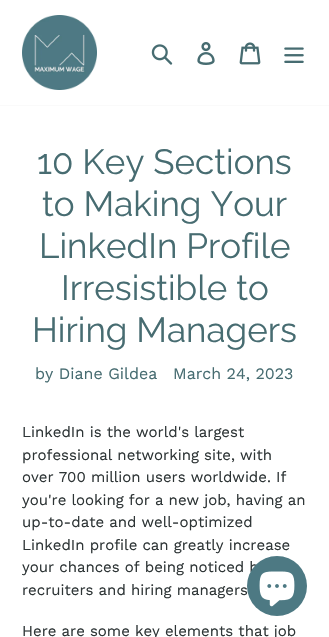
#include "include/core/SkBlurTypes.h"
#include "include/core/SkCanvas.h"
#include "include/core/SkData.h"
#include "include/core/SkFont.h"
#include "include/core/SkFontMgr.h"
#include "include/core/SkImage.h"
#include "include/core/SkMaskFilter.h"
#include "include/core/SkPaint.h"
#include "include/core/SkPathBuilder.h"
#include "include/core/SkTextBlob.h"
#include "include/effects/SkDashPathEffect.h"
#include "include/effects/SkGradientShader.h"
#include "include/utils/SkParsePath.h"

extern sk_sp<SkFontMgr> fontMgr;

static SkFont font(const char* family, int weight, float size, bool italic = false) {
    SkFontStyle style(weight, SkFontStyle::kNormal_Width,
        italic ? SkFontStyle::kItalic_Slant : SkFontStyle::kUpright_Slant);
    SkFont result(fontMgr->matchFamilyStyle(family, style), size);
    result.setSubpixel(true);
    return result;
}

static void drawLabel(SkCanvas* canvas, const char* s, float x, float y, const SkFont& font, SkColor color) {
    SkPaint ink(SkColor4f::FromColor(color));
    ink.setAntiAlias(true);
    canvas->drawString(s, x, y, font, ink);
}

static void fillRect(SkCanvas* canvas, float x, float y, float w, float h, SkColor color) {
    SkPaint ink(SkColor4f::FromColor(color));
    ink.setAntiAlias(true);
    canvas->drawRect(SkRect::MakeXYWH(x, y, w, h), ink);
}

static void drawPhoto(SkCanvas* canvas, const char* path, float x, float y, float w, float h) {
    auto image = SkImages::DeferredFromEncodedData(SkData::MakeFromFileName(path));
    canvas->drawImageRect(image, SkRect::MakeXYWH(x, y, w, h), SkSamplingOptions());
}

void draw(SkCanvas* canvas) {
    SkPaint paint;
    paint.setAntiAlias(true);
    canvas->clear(0xFFFFFFFF);
    fillRect(canvas, 0, 105, 329, 1, 0xFFFAFAFA);
    drawPhoto(canvas, "assets/img1.png", 22, 15, 75, 75);
    drawPhoto(canvas, "assets/img2.png", 151, 44, 22, 21);
    drawPhoto(canvas, "assets/img3.png", 197, 42, 18, 23);
    drawPhoto(canvas, "assets/img4.png", 239, 42, 22, 23);
    drawPhoto(canvas, "assets/img5.png", 284, 47, 20, 16);
    SkFont font1 = font("Raleway", 400, 35);
    drawLabel(canvas, "10 Key Sections", 37, 174, font1, 0xFF476C71);
    drawLabel(canvas, "to Making Your", 42, 216, font1, 0xFF476C71);
    drawLabel(canvas, "LinkedIn Profile", 39, 258, font1, 0xFF476C71);
    drawLabel(canvas, "Irresistible to", 61, 300, font1, 0xFF476C71);
    drawLabel(canvas, "Hiring Managers", 32, 342, font1, 0xFF476C71);
    SkFont font2 = font("Work Sans", 400, 16);
    drawLabel(canvas, "by Diane Gildea", 35, 379, font2, 0xFF476C71);
    drawLabel(canvas, "March 24, 2023", 173, 379, font2, 0xFF476C71);
    SkFont font3 = font("Work Sans", 400, 15);
    drawLabel(canvas, "LinkedIn is the world's largest", 22, 437, font3, 0xFF2E3536);
    drawLabel(canvas, "professional networking site, with", 22, 460, font3, 0xFF2E3536);
    drawLabel(canvas, "over 700 million users worldwide. If", 22, 482, font3, 0xFF2E3536);
    drawLabel(canvas, "you're looking for a new job, having an", 22, 505, font3, 0xFF2E3536);
    drawLabel(canvas, "up-to-date and well-optimized", 22, 527, font3, 0xFF2E3536);
    drawLabel(canvas, "LinkedIn profile can greatly increase", 22, 550, font3, 0xFF2E3536);
    drawLabel(canvas, "your chances of being noticed b", 22, 572, font3, 0xFF2E3536);
    drawLabel(canvas, "recruiters and hiring managers", 22, 595, font3, 0xFF2E3536);
    drawLabel(canvas, "Here are some key elements that job", 22, 636, font3, 0xFF2E3536);
    paint.setColor(0xFF4D7983);
    canvas->drawCircle(277, 586, 30, paint);
    drawPhoto(canvas, "assets/img6.png", 259, 571, 36, 36);
}
